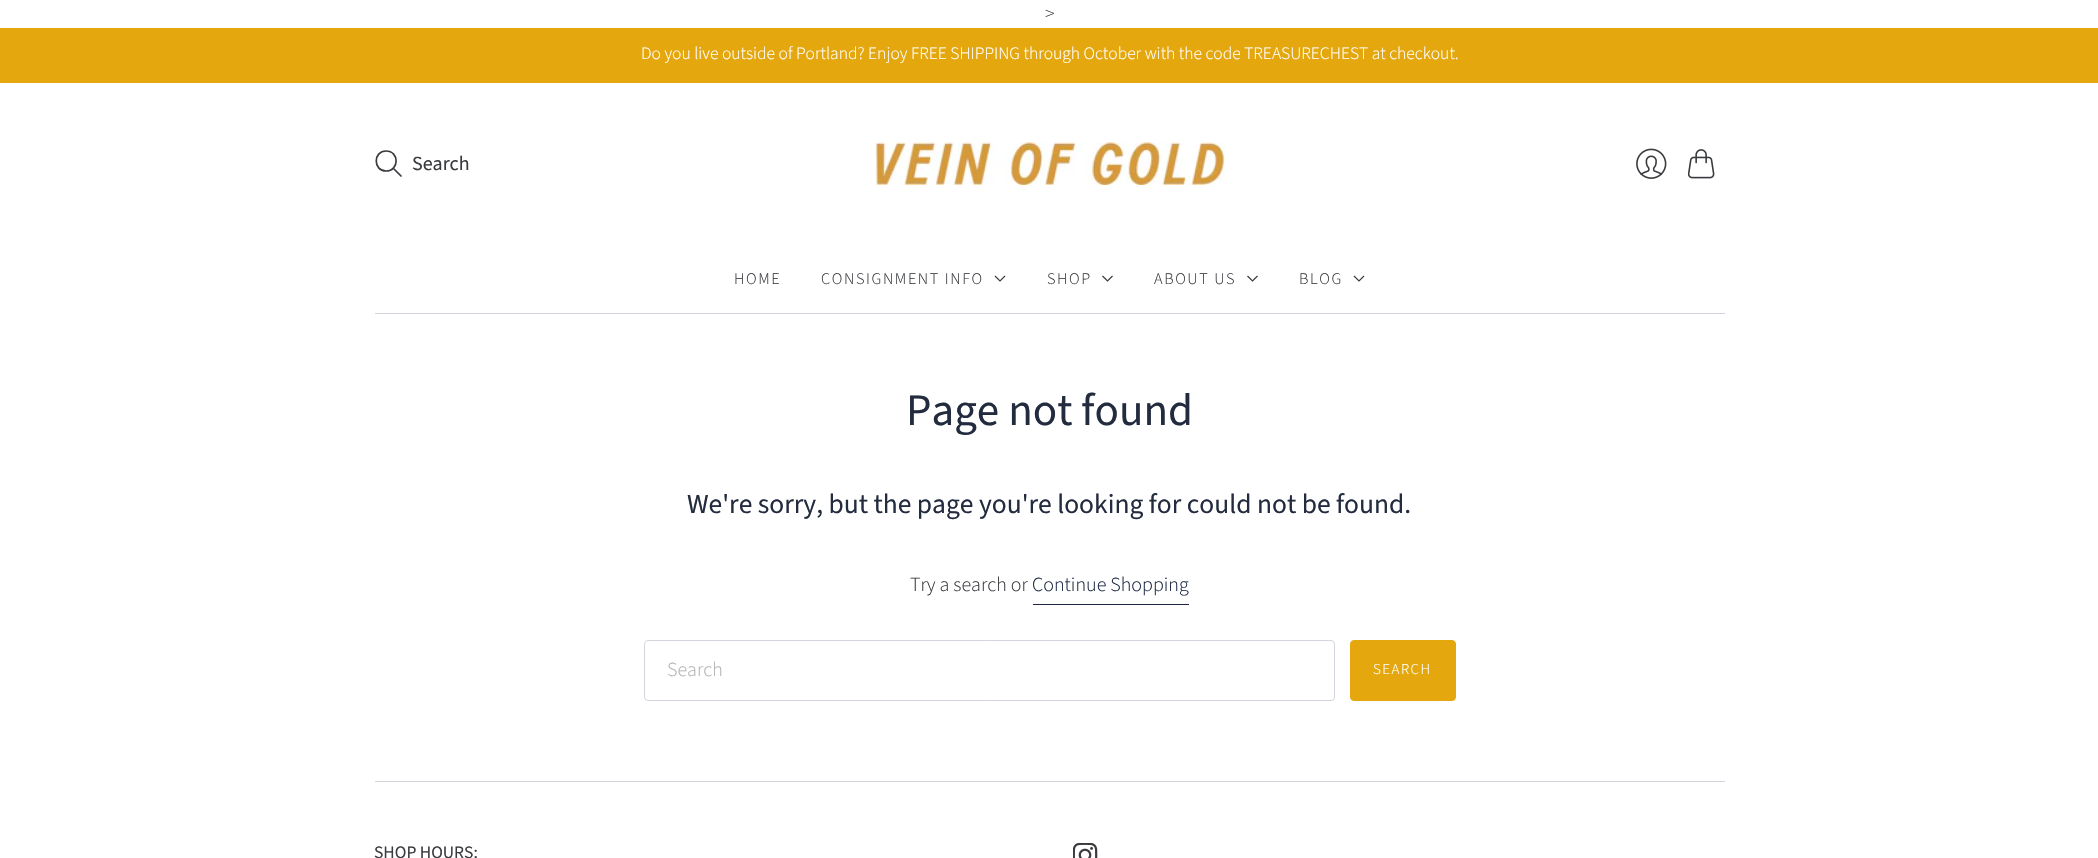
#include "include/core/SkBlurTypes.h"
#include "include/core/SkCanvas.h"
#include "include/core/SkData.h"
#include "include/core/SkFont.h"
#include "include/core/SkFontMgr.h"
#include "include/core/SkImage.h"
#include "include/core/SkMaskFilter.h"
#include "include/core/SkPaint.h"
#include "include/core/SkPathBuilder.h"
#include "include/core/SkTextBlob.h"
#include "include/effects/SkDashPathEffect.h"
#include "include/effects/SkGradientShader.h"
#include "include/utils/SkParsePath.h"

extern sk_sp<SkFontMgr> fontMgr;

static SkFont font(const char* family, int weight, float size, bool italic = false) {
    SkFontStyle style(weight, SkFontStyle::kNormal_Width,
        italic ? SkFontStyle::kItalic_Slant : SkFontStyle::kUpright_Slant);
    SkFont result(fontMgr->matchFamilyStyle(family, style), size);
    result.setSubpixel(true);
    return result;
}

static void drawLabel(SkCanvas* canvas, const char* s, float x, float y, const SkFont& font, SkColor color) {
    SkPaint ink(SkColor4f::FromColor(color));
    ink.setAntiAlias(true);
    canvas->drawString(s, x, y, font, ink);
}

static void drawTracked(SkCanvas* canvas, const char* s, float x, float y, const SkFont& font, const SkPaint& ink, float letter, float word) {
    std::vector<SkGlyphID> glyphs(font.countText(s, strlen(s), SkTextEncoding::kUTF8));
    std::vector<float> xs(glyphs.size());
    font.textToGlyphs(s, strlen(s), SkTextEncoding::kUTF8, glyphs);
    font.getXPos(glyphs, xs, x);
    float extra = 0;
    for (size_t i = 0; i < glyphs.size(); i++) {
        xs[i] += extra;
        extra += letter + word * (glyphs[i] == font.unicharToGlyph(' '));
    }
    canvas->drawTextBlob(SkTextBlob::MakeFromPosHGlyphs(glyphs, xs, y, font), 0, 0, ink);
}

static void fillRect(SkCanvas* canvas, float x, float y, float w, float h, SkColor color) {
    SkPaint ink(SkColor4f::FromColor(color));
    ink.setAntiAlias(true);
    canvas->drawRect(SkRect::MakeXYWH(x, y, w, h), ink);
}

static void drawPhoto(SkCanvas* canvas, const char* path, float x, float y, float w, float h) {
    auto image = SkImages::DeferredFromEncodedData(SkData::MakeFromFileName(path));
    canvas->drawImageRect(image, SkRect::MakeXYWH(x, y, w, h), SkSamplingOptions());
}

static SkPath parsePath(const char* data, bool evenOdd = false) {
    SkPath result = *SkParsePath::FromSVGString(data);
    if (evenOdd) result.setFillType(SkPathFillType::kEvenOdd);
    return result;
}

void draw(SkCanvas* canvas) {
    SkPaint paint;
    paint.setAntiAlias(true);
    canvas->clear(0xFFFFFFFF);
    SkFont font1 = font("Source Sans Pro", 300, 20);
    drawLabel(canvas, ">", 1045, 20, font1, 0xFF393B3F);
    fillRect(canvas, 0, 28, 2098, 55, 0xFFE4A80E);
    SkFont font2 = font("Source Sans Pro", 300, 17.5f);
    drawLabel(canvas, "Do you live outside of Portland? Enjoy FREE SHIPPING through October with the code TREASURECHEST at checkout.", 641, 59, font2, 0xFFFFFFFF);
    paint.setStroke(true);
    paint.setStrokeWidth(1.7f);
    paint.setStrokeCap(SkPaint::kRound_Cap);
    paint.setStrokeJoin(SkPaint::kRound_Join);
    paint.setColor(0xFF393B3F);
    canvas->drawPath(parsePath("M386 171C399.5 171 399.5 151 386 151C373 151 373 171 386 171ZM401 176L393.5 168.5"), paint);
    SkFont font3 = font("Source Sans Pro", 400, 20);
    drawLabel(canvas, "Search", 412, 170, font3, 0xFF393B3F);
    drawPhoto(canvas, "assets/img1.png", 1636, 148, 31, 31);
    drawPhoto(canvas, "assets/img2.png", 1688, 149, 27, 30);
    fillRect(canvas, 375, 313, 1350, 1, 0xFFD2D6DC);
    drawPhoto(canvas, "assets/img3.png", 875, 142, 350, 43);
    SkFont font4 = font("Source Sans Pro", 300, 16.25f);
    paint.setStroke(false);
    drawTracked(canvas, "HOME", 734, 284, font4, paint, 1.6f, 0);
    drawTracked(canvas, "CONSIGNMENT INFO", 821, 284, font4, paint, 1.6f, 0);
    paint.setStroke(true);
    paint.setStrokeWidth(1.2f);
    paint.setStrokeCap(SkPaint::kButt_Cap);
    paint.setStrokeJoin(SkPaint::kMiter_Join);
    canvas->drawPath(parsePath("M995 276L1000 281L1005 276"), paint);
    paint.setStroke(false);
    drawTracked(canvas, "SHOP", 1047, 284, font4, paint, 1.6f, 0);
    paint.setStroke(true);
    canvas->drawPath(parsePath("M1102.5 276L1107.5 281L1112.5 276"), paint);
    paint.setStroke(false);
    drawTracked(canvas, "ABOUT US", 1154, 284, font4, paint, 1.6f, 0);
    paint.setStroke(true);
    canvas->drawPath(parsePath("M1247.5 276L1252.5 281L1257.5 276"), paint);
    paint.setStroke(false);
    drawTracked(canvas, "BLOG", 1299, 284, font4, paint, 1.6f, 0);
    paint.setStroke(true);
    canvas->drawPath(parsePath("M1354 276L1359 281L1364 276"), paint);
    SkFont font5 = font("Source Sans Pro", 400, 45);
    drawLabel(canvas, "Page not found", 906, 425, font5, 0xFF232C3F);
    SkFont font6 = font("Source Sans Pro", 400, 27.5f);
    drawLabel(canvas, "We're sorry, but the page you're looking for could not be found.", 687, 513, font6, 0xFF232C3F);
    drawLabel(canvas, "Try a search or", 910, 591, font1, 0xFF393B3F);
    drawLabel(canvas, "Continue Shopping", 1032, 591, font1, 0xFF1A2642);
    fillRect(canvas, 1033, 604, 156, 1, 0xFF1A2642);
    paint.setStrokeWidth(1);
    paint.setColor(0xFFD2D6DC);
    canvas->drawRoundRect(SkRect::MakeXYWH(644.5f, 640.5f, 690, 60), 3.5f, 3.5f, paint);
    drawLabel(canvas, "Search", 667, 676, font1, 0xFFB0B1B2);
    paint.setStroke(false);
    paint.setColor(0xFFE4A80E);
    canvas->drawRoundRect(SkRect::MakeXYWH(1350.5f, 640.5f, 105, 60), 3.5f, 3.5f, paint);
    paint.setStroke(true);
    canvas->drawRoundRect(SkRect::MakeXYWH(1350.5f, 640.5f, 105, 60), 3.5f, 3.5f, paint);
    SkFont font7 = font("Source Sans Pro", 300, 15);
    paint.setStroke(false);
    paint.setColor(0xFFFFFFFF);
    drawTracked(canvas, "SEARCH", 1373, 674, font7, paint, 1.5f, 0);
    fillRect(canvas, 375, 781, 1350, 1, 0xFFD2D6DC);
    SkFont font8 = font("Source Sans Pro", 400, 17.5f);
    drawLabel(canvas, "SHOP HOURS:", 374, 858, font8, 0xFF393B3F);
    drawPhoto(canvas, "assets/img4.png", 1073, 843, 25, 15);
}
